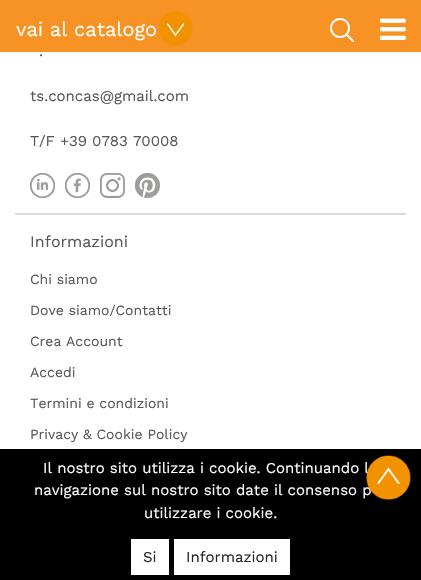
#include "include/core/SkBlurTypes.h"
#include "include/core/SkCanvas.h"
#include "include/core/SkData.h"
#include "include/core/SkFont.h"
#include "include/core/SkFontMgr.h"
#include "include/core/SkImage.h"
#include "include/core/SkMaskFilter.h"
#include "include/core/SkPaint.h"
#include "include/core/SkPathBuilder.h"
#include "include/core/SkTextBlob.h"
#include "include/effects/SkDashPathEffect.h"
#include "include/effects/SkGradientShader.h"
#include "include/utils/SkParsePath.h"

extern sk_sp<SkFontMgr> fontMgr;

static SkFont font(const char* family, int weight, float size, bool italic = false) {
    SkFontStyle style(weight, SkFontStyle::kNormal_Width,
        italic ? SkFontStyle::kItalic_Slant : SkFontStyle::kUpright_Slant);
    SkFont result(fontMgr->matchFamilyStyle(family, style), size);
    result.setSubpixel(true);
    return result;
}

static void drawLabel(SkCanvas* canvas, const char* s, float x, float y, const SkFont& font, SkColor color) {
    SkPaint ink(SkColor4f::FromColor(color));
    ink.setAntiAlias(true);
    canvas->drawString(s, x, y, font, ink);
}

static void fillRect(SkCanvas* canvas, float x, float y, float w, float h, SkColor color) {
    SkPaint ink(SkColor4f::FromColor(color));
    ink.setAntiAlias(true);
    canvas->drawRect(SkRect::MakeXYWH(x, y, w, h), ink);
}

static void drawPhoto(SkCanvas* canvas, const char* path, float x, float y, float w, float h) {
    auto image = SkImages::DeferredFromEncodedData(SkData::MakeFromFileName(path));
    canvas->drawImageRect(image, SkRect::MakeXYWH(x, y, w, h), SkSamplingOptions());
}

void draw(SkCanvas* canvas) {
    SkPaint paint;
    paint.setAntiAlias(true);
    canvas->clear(0xFFFFFFFF);
    fillRect(canvas, 0, 0, 421, 52, 0xFFF69324);
    SkFont font1 = font("Work Sans", 400, 20);
    drawLabel(canvas, "vai al catalogo", 16, 36, font1, 0xFFFFFFFF);
    drawPhoto(canvas, "assets/img1.png", 158, 11, 35, 35);
    drawPhoto(canvas, "assets/img2.png", 330, 18, 24, 24);
    drawPhoto(canvas, "assets/img3.png", 380, 18, 26, 22);
    SkFont font2 = font("Work Sans", 400, 15);
    drawLabel(canvas, ".", 39, 56, font2, 0xFF575756);
    drawLabel(canvas, "ts.concas@gmail.com", 30, 101, font2, 0xFF575756);
    drawLabel(canvas, "T/F +39 0783 70008", 30, 146, font2, 0xFF575756);
    drawPhoto(canvas, "assets/img4.png", 30, 173, 25, 25);
    drawPhoto(canvas, "assets/img5.png", 65, 173, 25, 25);
    drawPhoto(canvas, "assets/img6.png", 100, 173, 25, 25);
    drawPhoto(canvas, "assets/img7.png", 135, 173, 25, 25);
    fillRect(canvas, 15, 213, 391, 2, 0xFFDADADA);
    SkFont font3 = font("Work Sans", 400, 16);
    drawLabel(canvas, "Informazioni", 30, 247, font3, 0xFF575756);
    SkFont font4 = font("Work Sans", 400, 14);
    drawLabel(canvas, "Chi siamo", 30, 284, font4, 0xFF575756);
    drawLabel(canvas, "Dove siamo/Contatti", 30, 315, font4, 0xFF575756);
    drawLabel(canvas, "Crea Account", 30, 346, font4, 0xFF575756);
    drawLabel(canvas, "Accedi", 30, 377, font4, 0xFF575756);
    drawLabel(canvas, "Termini e condizioni", 30, 408, font4, 0xFF575756);
    drawLabel(canvas, "Privacy & Cookie Policy", 30, 439, font4, 0xFF575756);
    fillRect(canvas, 0, 449, 421, 131, 0xFF000000);
    drawLabel(canvas, "Il nostro sito utilizza i cookie. Continuando l", 43, 473, font2, 0xFFFFFFFF);
    drawLabel(canvas, "navigazione sul nostro sito date il consenso p", 34, 495, font2, 0xFFFFFFFF);
    drawPhoto(canvas, "assets/img8.png", 366, 455, 45, 45);
    drawLabel(canvas, "utilizzare i cookie.", 144, 518, font2, 0xFFFFFFFF);
    fillRect(canvas, 131, 539, 38, 36, 0xFFFFFFFF);
    drawLabel(canvas, "Si", 143, 562, font2, 0xFF212529);
    fillRect(canvas, 174, 539, 116, 36, 0xFFFFFFFF);
    drawLabel(canvas, "Informazioni", 186, 562, font2, 0xFF212529);
}
